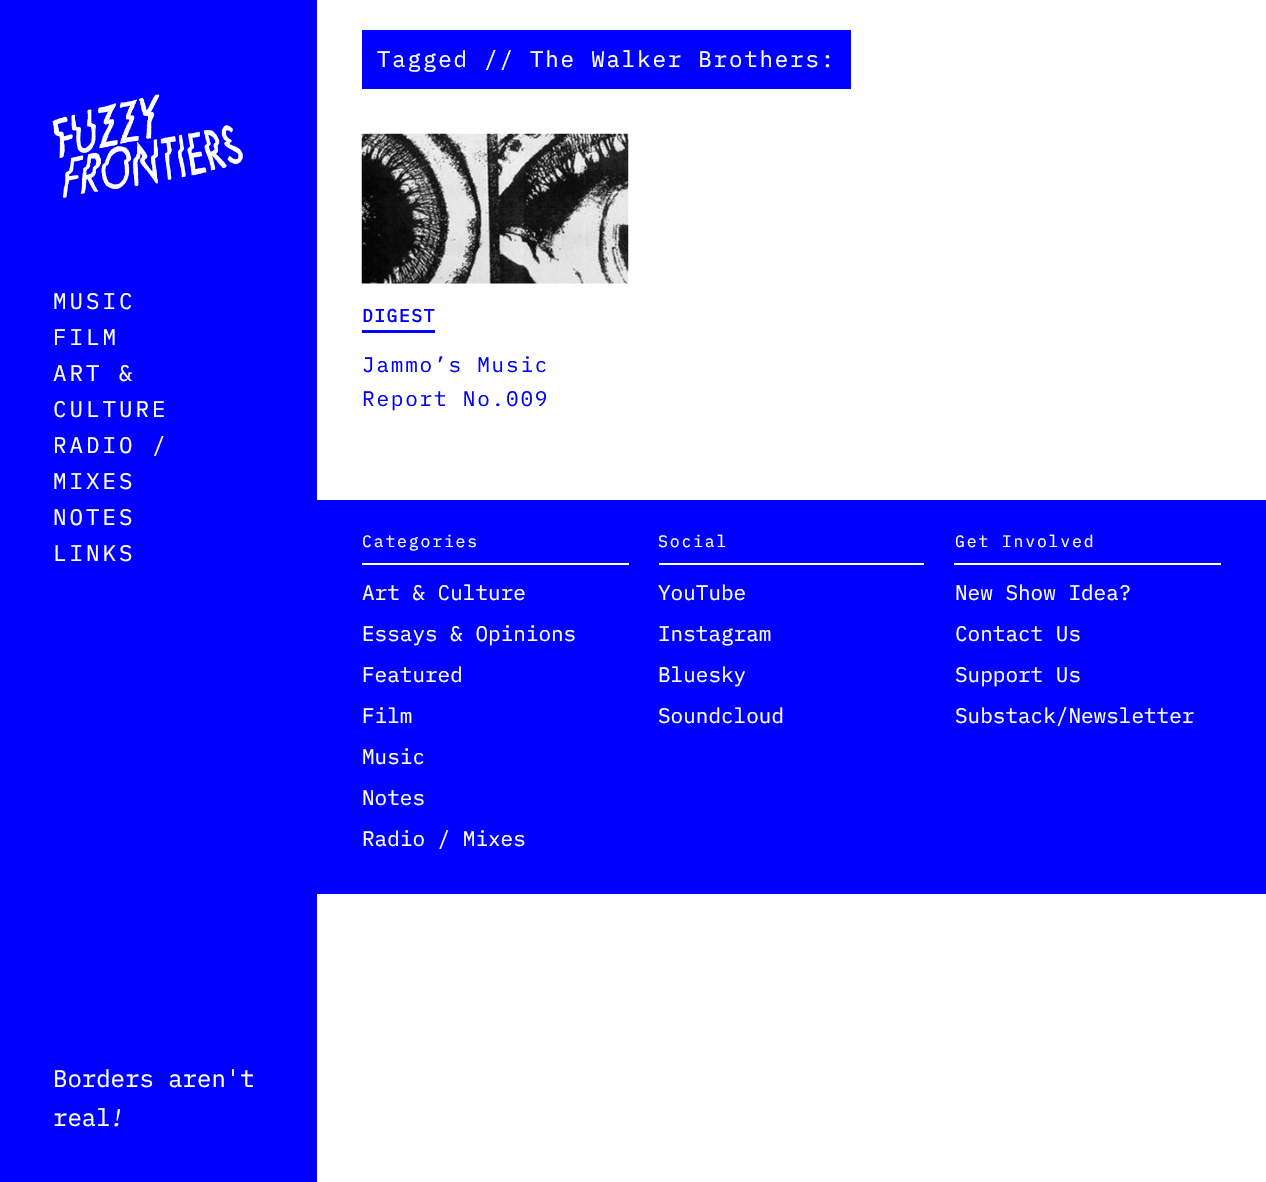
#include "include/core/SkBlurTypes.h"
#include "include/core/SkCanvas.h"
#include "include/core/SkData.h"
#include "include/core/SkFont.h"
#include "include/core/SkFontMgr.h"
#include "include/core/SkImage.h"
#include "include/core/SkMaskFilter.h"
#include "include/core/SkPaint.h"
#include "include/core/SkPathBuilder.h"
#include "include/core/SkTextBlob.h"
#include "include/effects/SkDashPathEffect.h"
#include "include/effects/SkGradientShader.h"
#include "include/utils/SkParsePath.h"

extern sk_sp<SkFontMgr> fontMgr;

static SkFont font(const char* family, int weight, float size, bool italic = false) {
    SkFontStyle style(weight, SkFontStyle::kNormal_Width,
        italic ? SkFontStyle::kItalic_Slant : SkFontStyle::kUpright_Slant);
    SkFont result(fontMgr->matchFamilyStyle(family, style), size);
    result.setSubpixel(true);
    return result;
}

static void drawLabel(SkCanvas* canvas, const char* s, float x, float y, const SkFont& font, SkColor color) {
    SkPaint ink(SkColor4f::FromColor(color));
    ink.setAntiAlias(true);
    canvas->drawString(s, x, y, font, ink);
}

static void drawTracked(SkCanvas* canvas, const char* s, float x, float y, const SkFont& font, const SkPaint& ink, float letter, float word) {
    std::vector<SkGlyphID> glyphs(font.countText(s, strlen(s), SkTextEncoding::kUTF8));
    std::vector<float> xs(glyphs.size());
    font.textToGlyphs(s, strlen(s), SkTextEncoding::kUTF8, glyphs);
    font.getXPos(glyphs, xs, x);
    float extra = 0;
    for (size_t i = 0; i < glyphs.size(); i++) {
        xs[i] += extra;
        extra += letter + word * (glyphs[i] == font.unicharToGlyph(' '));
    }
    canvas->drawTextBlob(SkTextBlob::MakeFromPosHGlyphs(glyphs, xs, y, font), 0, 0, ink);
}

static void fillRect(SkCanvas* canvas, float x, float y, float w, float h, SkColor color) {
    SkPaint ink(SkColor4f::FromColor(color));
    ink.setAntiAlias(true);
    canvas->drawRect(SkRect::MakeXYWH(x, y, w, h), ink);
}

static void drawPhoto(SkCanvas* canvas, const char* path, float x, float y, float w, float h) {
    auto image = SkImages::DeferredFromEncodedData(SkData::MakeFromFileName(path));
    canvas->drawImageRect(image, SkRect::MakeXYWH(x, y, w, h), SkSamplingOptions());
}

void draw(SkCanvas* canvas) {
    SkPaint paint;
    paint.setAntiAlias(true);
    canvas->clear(0xFFFFFFFF);
    fillRect(canvas, 0, 0, 317, 1182, 0xFF0000FF);
    drawPhoto(canvas, "assets/img1.png", 52, 94, 191, 104);
    SkFont font1 = font("IBM Plex Mono", 400, 22.5f);
    paint.setColor(0xFFFFFFFF);
    drawTracked(canvas, "MUSIC", 53, 309, font1, paint, 3, 0);
    drawTracked(canvas, "FILM", 53, 345, font1, paint, 3, 0);
    drawTracked(canvas, "ART &", 53, 381, font1, paint, 3, 0);
    drawTracked(canvas, "CULTURE", 53, 417, font1, paint, 3, 0);
    drawTracked(canvas, "RADIO /", 53, 453, font1, paint, 3, 0);
    drawTracked(canvas, "MIXES", 53, 489, font1, paint, 3, 0);
    drawTracked(canvas, "NOTES", 53, 525, font1, paint, 3, 0);
    drawTracked(canvas, "LINKS", 53, 561, font1, paint, 3, 0);
    SkFont font2 = font("IBM Plex Mono", 400, 24);
    drawLabel(canvas, "Borders aren't", 53, 1087, font2, 0xFFFFFFFF);
    drawLabel(canvas, "real", 53, 1126, font2, 0xFFFFFFFF);
    SkFont font3 = font("IBM Plex Mono", 400, 24, true);
    drawLabel(canvas, "!", 110, 1126, font3, 0xFFFFFFFF);
    fillRect(canvas, 362, 30, 489, 59, 0xFF0000FF);
    drawTracked(canvas, "Tagged // The Walker Brothers:", 377, 67, font1, paint, 1.8f, 0);
    drawPhoto(canvas, "assets/img2.png", 361, 133, 268, 151);
    fillRect(canvas, 362, 330, 73, 3, 0xFF0000FF);
    SkFont font4 = font("IBM Plex Mono", 700, 18);
    paint.setColor(0xFF0000FF);
    drawTracked(canvas, "DIGEST", 362, 322, font4, paint, 1.5f, 0);
    SkFont font5 = font("IBM Plex Mono", 400, 21);
    drawTracked(canvas, "Jammo’s Music", 362, 372, font5, paint, 1.8f, 0);
    drawTracked(canvas, "Report No.009", 362, 406, font5, paint, 1.8f, 0);
    fillRect(canvas, 317, 500, 949, 394, 0xFF0000FF);
    fillRect(canvas, 362, 563, 267, 2, 0xFFFFFFFF);
    SkFont font6 = font("IBM Plex Mono", 400, 16.5f);
    paint.setColor(0xFFFFFFFF);
    drawTracked(canvas, "Categories", 362, 547, font6, paint, 1.8f, 0);
    drawLabel(canvas, "Art & Culture", 362, 600, font5, 0xFFFFFFFF);
    drawLabel(canvas, "Essays & Opinions", 362, 641, font5, 0xFFFFFFFF);
    drawLabel(canvas, "Featured", 362, 682, font5, 0xFFFFFFFF);
    drawLabel(canvas, "Film", 362, 723, font5, 0xFFFFFFFF);
    drawLabel(canvas, "Music", 362, 764, font5, 0xFFFFFFFF);
    drawLabel(canvas, "Notes", 362, 805, font5, 0xFFFFFFFF);
    drawLabel(canvas, "Radio / Mixes", 362, 846, font5, 0xFFFFFFFF);
    fillRect(canvas, 659, 563, 265, 2, 0xFFFFFFFF);
    drawTracked(canvas, "Social", 658, 547, font6, paint, 1.8f, 0);
    drawLabel(canvas, "YouTube", 658, 600, font5, 0xFFFFFFFF);
    drawLabel(canvas, "Instagram", 658, 641, font5, 0xFFFFFFFF);
    drawLabel(canvas, "Bluesky", 658, 682, font5, 0xFFFFFFFF);
    drawLabel(canvas, "Soundcloud", 658, 723, font5, 0xFFFFFFFF);
    fillRect(canvas, 954, 563, 267, 2, 0xFFFFFFFF);
    drawTracked(canvas, "Get Involved", 955, 547, font6, paint, 1.8f, 0);
    drawLabel(canvas, "New Show Idea?", 955, 600, font5, 0xFFFFFFFF);
    drawLabel(canvas, "Contact Us", 955, 641, font5, 0xFFFFFFFF);
    drawLabel(canvas, "Support Us", 955, 682, font5, 0xFFFFFFFF);
    drawLabel(canvas, "Substack/Newsletter", 955, 723, font5, 0xFFFFFFFF);
}
